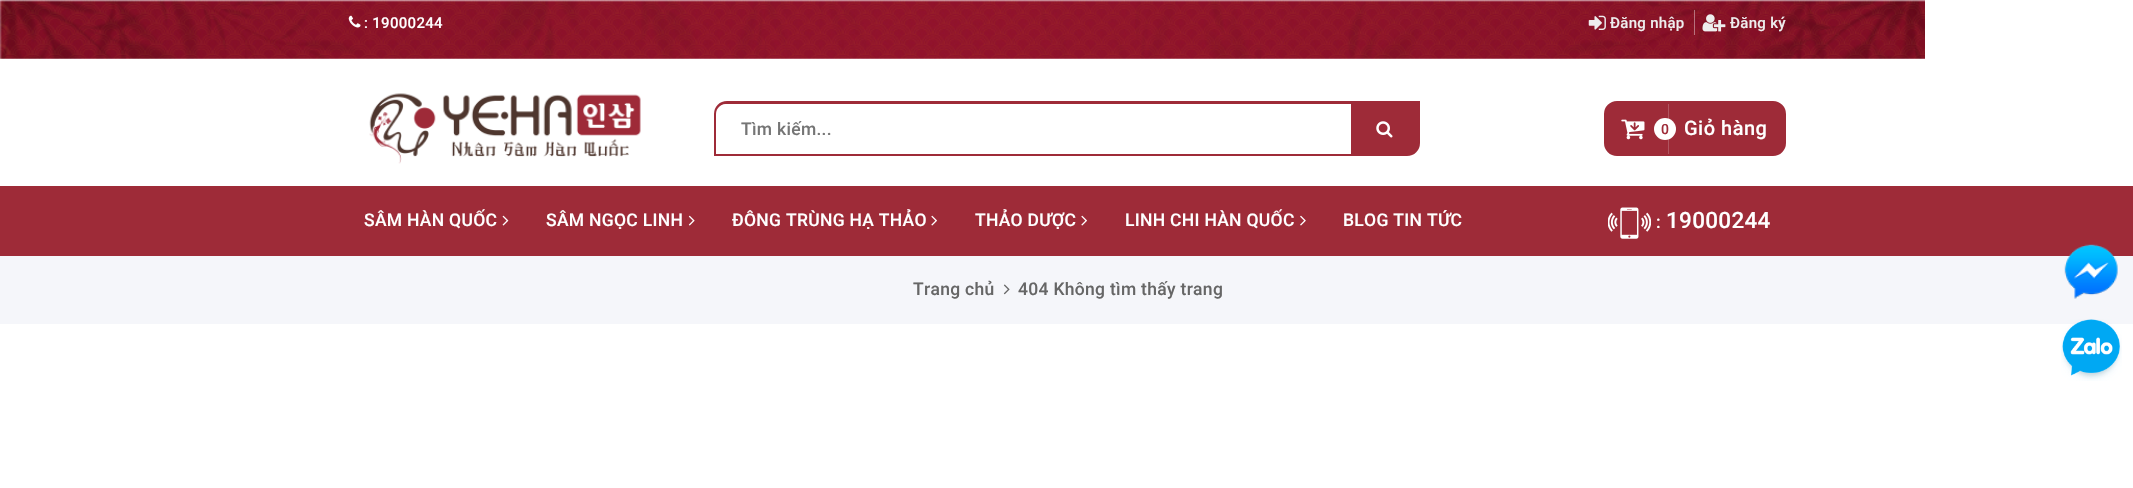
#include "include/core/SkBlurTypes.h"
#include "include/core/SkCanvas.h"
#include "include/core/SkData.h"
#include "include/core/SkFont.h"
#include "include/core/SkFontMgr.h"
#include "include/core/SkImage.h"
#include "include/core/SkMaskFilter.h"
#include "include/core/SkPaint.h"
#include "include/core/SkPathBuilder.h"
#include "include/core/SkTextBlob.h"
#include "include/effects/SkDashPathEffect.h"
#include "include/effects/SkGradientShader.h"
#include "include/utils/SkParsePath.h"

extern sk_sp<SkFontMgr> fontMgr;

static SkFont font(const char* family, int weight, float size, bool italic = false) {
    SkFontStyle style(weight, SkFontStyle::kNormal_Width,
        italic ? SkFontStyle::kItalic_Slant : SkFontStyle::kUpright_Slant);
    SkFont result(fontMgr->matchFamilyStyle(family, style), size);
    result.setSubpixel(true);
    return result;
}

static void drawTracked(SkCanvas* canvas, const char* s, float x, float y, const SkFont& font, const SkPaint& ink, float letter, float word) {
    std::vector<SkGlyphID> glyphs(font.countText(s, strlen(s), SkTextEncoding::kUTF8));
    std::vector<float> xs(glyphs.size());
    font.textToGlyphs(s, strlen(s), SkTextEncoding::kUTF8, glyphs);
    font.getXPos(glyphs, xs, x);
    float extra = 0;
    for (size_t i = 0; i < glyphs.size(); i++) {
        xs[i] += extra;
        extra += letter + word * (glyphs[i] == font.unicharToGlyph(' '));
    }
    canvas->drawTextBlob(SkTextBlob::MakeFromPosHGlyphs(glyphs, xs, y, font), 0, 0, ink);
}

static void fillRect(SkCanvas* canvas, float x, float y, float w, float h, SkColor color) {
    SkPaint ink(SkColor4f::FromColor(color));
    ink.setAntiAlias(true);
    canvas->drawRect(SkRect::MakeXYWH(x, y, w, h), ink);
}

static void drawPhoto(SkCanvas* canvas, const char* path, float x, float y, float w, float h) {
    auto image = SkImages::DeferredFromEncodedData(SkData::MakeFromFileName(path));
    canvas->drawImageRect(image, SkRect::MakeXYWH(x, y, w, h), SkSamplingOptions());
}

static SkPath parsePath(const char* data, bool evenOdd = false) {
    SkPath result = *SkParsePath::FromSVGString(data);
    if (evenOdd) result.setFillType(SkPathFillType::kEvenOdd);
    return result;
}

void draw(SkCanvas* canvas) {
    SkPaint paint;
    paint.setAntiAlias(true);
    canvas->clear(0xFFFFFFFF);
    drawPhoto(canvas, "assets/img1.png", 0, 0, 1925, 59);
    drawPhoto(canvas, "assets/img2.png", 348, 15, 13, 13);
    SkFont font1 = font("Roboto", 500, 15);
    paint.setColor(0xFFFFFFFF);
    drawTracked(canvas, ": 19000244", 364, 28, font1, paint, 0.3f, 0);
    drawPhoto(canvas, "assets/img3.png", 1588, 15, 18, 15);
    paint.setColor(0xFFEEEEEE);
    drawTracked(canvas, "Đăng nhập", 1610, 28, font1, paint, 0.3f, 0);
    fillRect(canvas, 1694, 10, 1, 25, 0x66FFFFFF);
    drawPhoto(canvas, "assets/img4.png", 1702, 14, 24, 18);
    drawTracked(canvas, "Đăng ký", 1730, 28, font1, paint, 0.3f, 0);
    drawPhoto(canvas, "assets/img5.png", 369, 93, 272, 71);
    paint.setStroke(true);
    paint.setStrokeWidth(3);
    paint.setColor(0xFF9E2B38);
    canvas->drawPath(parsePath("M727 102.5H1418.5V143C1418.5 149.5 1413.5 154.5 1407 154.5H715.5V114C715.5 107.5 720.5 102.5 727 102.5Z"), paint);
    paint.setStroke(false);
    paint.setColor(0xFFFFFFFF);
    canvas->drawPath(parsePath("M726 104H1353V154H716V114C716 108.5 720.5 104 726 104Z"), paint);
    SkFont font2 = font("Roboto", 500, 17.5f);
    paint.setColor(0xFF757575);
    drawTracked(canvas, "Tìm kiếm...", 741, 135, font2, paint, 0.3f, 0);
    paint.setColor(0xFF9E2B38);
    canvas->drawPath(parsePath("M1351 104H1418V144C1418 149.5 1413.5 154 1408 154H1351Z"), paint);
    drawPhoto(canvas, "assets/img6.png", 1376, 121, 17, 17);
    canvas->drawRoundRect(SkRect::MakeXYWH(1605.5f, 102.5f, 179, 52), 11.5f, 11.5f, paint);
    paint.setStroke(true);
    canvas->drawRoundRect(SkRect::MakeXYWH(1605.5f, 102.5f, 179, 52), 11.5f, 11.5f, paint);
    fillRect(canvas, 1668, 104, 1, 50, 0xFFB15560);
    drawPhoto(canvas, "assets/img7.png", 1621, 119, 24, 21);
    SkFont font3 = font("Roboto", 500, 20);
    paint.setStroke(false);
    paint.setColor(0xFFFFFFFF);
    drawTracked(canvas, "Giỏ hàng", 1684, 135, font3, paint, 0.5f, 0);
    canvas->drawCircle(1665, 129, 11, paint);
    SkFont font4 = font("Roboto", 500, 14);
    paint.setColor(0xFF9E2B38);
    drawTracked(canvas, "0", 1661, 134, font4, paint, 0.3f, 0);
    fillRect(canvas, 0, 186, 2133, 70, 0xFF9E2B38);
    paint.setColor(0xFFFFFFFF);
    drawTracked(canvas, "SÂM HÀN QUỐC", 364, 226, font2, paint, 0.3f, 0);
    drawPhoto(canvas, "assets/img8.png", 502, 215, 7, 11);
    drawTracked(canvas, "SÂM NGỌC LINH", 546, 226, font2, paint, 0.3f, 0);
    drawPhoto(canvas, "assets/img9.png", 688, 215, 7, 11);
    drawTracked(canvas, "ĐÔNG TRÙNG HẠ THẢO", 732, 226, font2, paint, 0.3f, 0);
    drawPhoto(canvas, "assets/img10.png", 931, 215, 6, 11);
    drawTracked(canvas, "THẢO DƯỢC", 975, 226, font2, paint, 0.3f, 0);
    drawPhoto(canvas, "assets/img10.png", 1081, 215, 6, 11);
    drawTracked(canvas, "LINH CHI HÀN QUỐC", 1125, 226, font2, paint, 0.3f, 0);
    drawPhoto(canvas, "assets/img11.png", 1300, 215, 6, 11);
    drawTracked(canvas, "BLOG TIN TỨC", 1343, 226, font2, paint, 0.3f, 0);
    drawPhoto(canvas, "assets/img12.png", 1608, 207, 43, 32);
    drawTracked(canvas, ":", 1656, 228, font2, paint, 0.3f, 0);
    SkFont font5 = font("Roboto", 500, 22.5f);
    drawTracked(canvas, "19000244", 1666, 228, font5, paint, 0.3f, 0);
    fillRect(canvas, 0, 256, 2133, 68, 0xFFF5F6FA);
    paint.setColor(0xFF666666);
    drawTracked(canvas, "Trang chủ", 913, 295, font2, paint, 0.3f, 0);
    drawPhoto(canvas, "assets/img13.png", 1003, 284, 7, 11);
    drawTracked(canvas, "404 Không tìm thấy trang", 1018, 295, font2, paint, 0.3f, 0);
    drawPhoto(canvas, "assets/img14.png", 2064, 244, 54, 55);
    drawPhoto(canvas, "assets/img15.png", 2061, 319, 61, 62);
}
